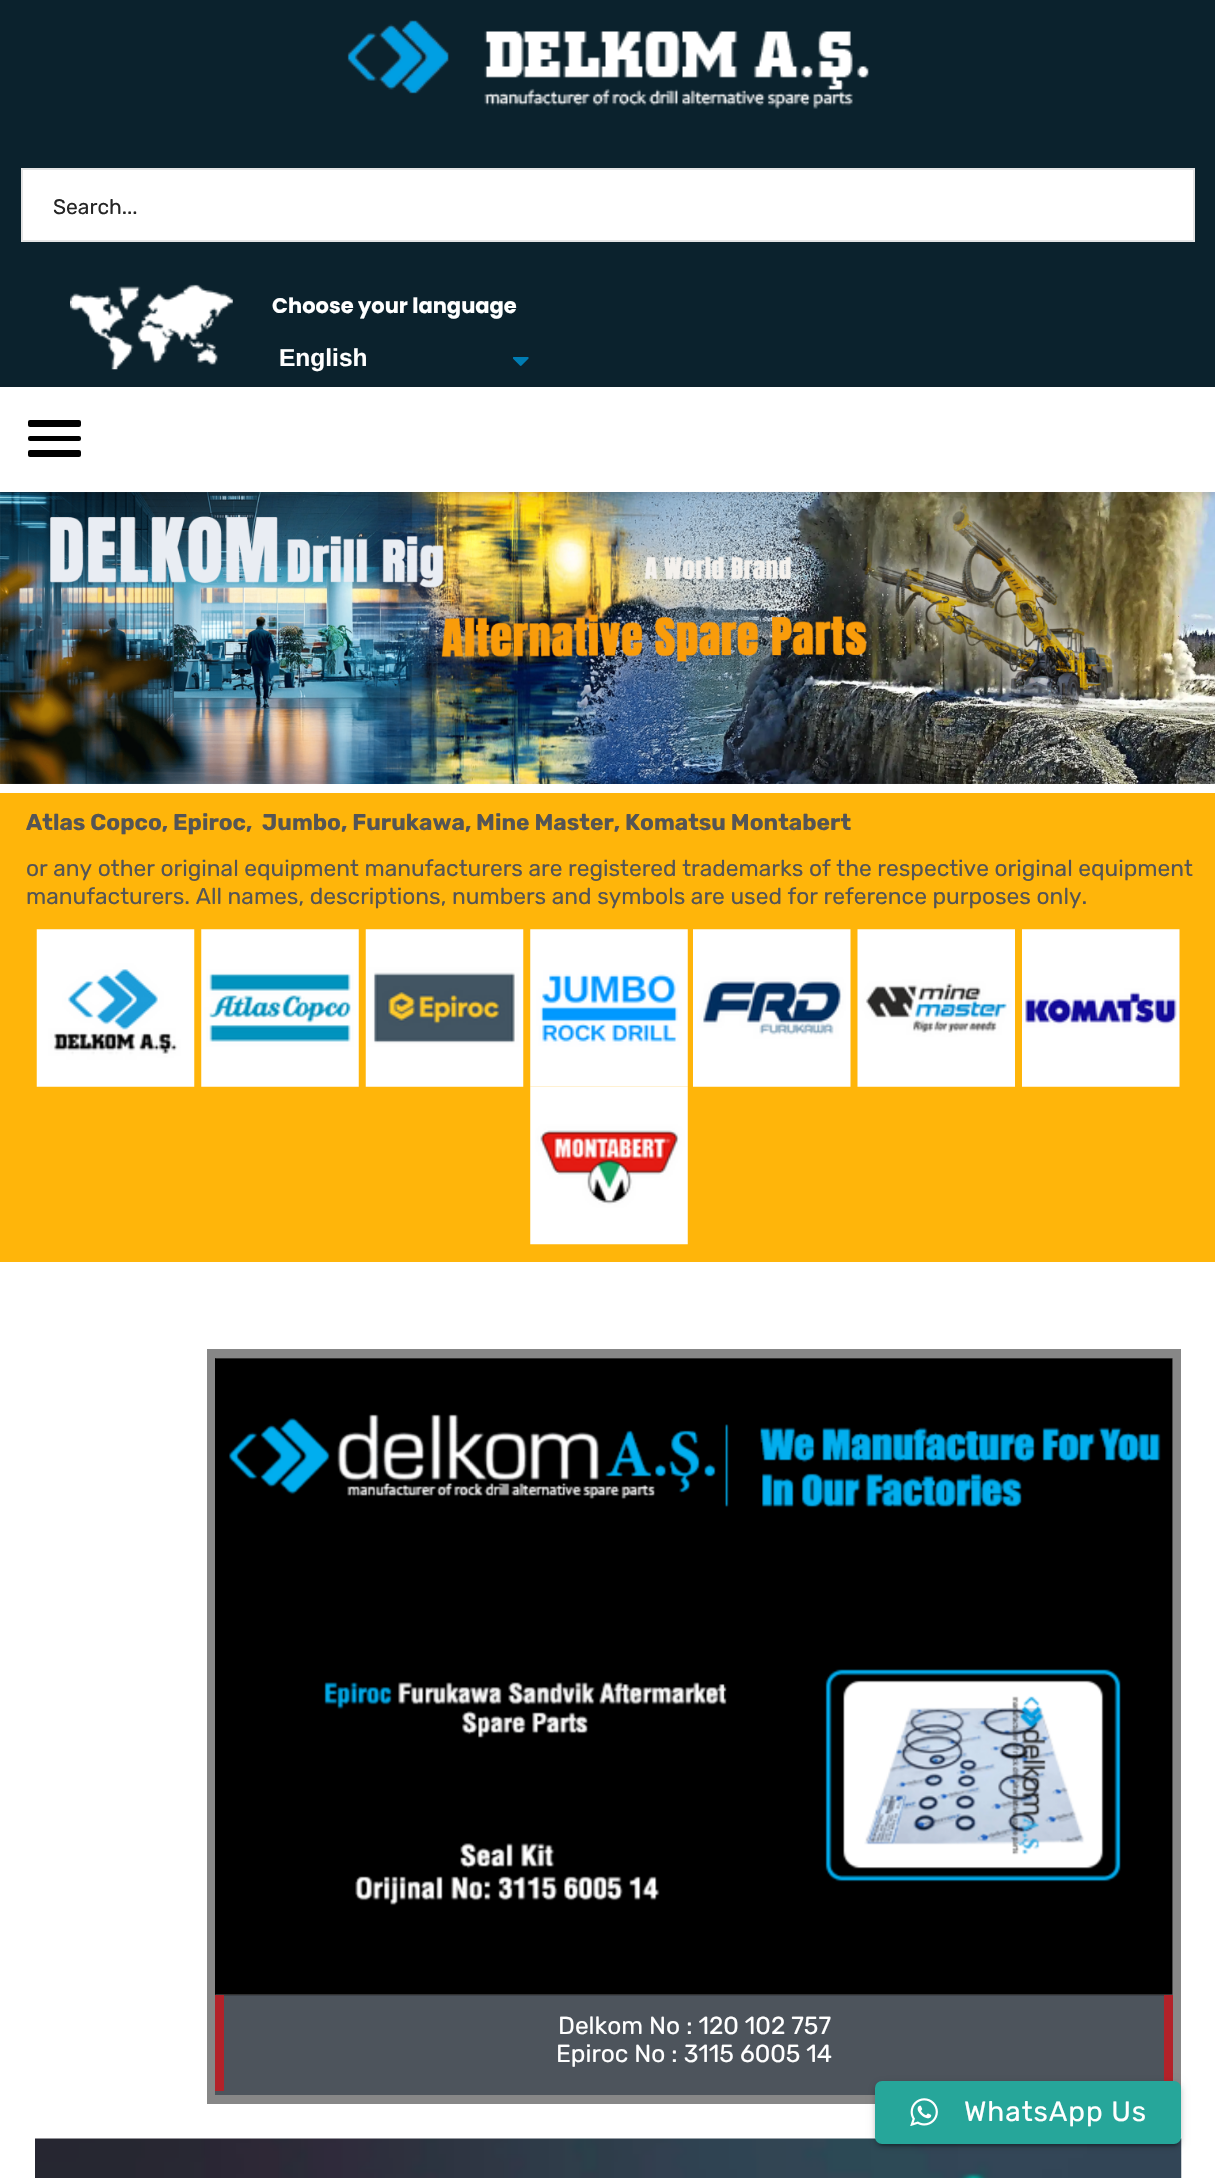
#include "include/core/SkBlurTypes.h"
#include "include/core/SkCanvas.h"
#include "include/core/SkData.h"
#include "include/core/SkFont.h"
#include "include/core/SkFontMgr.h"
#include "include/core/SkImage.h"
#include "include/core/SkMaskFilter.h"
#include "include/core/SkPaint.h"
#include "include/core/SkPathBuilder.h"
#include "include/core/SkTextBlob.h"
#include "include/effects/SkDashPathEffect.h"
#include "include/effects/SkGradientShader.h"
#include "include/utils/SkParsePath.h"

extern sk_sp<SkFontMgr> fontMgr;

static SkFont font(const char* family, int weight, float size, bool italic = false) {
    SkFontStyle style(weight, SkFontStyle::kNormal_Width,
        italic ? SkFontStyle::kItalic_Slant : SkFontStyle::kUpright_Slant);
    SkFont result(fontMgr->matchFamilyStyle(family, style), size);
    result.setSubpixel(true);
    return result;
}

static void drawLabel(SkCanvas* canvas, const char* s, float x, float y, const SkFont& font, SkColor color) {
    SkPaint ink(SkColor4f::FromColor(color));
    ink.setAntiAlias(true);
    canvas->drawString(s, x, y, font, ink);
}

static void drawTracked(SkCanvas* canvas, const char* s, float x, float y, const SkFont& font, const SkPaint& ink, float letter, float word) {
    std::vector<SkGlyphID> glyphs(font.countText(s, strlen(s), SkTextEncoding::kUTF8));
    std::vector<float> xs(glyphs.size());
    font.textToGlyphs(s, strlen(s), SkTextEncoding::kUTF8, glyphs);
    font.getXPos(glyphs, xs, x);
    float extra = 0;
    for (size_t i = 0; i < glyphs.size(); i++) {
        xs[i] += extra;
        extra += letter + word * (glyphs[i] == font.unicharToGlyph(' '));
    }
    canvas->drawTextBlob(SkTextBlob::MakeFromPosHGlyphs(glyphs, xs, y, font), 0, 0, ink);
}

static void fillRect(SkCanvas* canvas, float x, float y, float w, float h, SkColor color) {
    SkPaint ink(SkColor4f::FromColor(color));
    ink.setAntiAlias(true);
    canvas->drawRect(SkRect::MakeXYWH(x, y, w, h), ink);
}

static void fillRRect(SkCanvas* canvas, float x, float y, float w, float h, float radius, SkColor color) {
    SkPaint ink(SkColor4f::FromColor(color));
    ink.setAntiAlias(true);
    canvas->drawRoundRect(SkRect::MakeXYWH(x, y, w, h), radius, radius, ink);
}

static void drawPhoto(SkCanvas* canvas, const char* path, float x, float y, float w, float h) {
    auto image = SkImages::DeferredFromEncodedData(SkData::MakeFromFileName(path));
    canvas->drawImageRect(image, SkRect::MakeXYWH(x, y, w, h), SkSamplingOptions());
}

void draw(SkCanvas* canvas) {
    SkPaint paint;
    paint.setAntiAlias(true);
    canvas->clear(0xFFFFFFFF);
    fillRect(canvas, 0, 0, 1215, 387, 0xFF0B222D);
    drawPhoto(canvas, "assets/img1.png", 347, 20, 522, 89);
    paint.setColor(0xFFFFFFFF);
    canvas->drawRect(SkRect::MakeXYWH(22, 169, 1172, 72), paint);
    paint.setStroke(true);
    paint.setStrokeWidth(2);
    paint.setColor(0xFFE4E4E4);
    canvas->drawRect(SkRect::MakeXYWH(22, 169, 1172, 72), paint);
    SkFont font1 = font("Rubik", 400, 21);
    drawLabel(canvas, "Search...", 53, 214, font1, 0xFF262626);
    drawPhoto(canvas, "assets/img2.png", 70, 284, 163, 86);
    SkFont font2 = font("Poppins", 700, 21);
    drawLabel(canvas, "Choose your language", 272, 313, font2, 0xFFFFFFFF);
    drawPhoto(canvas, "assets/img3.png", 513, 357, 16, 9);
    SkFont font3 = font("Liberation Sans", 700, 24.5f);
    drawLabel(canvas, "English", 279, 366, font3, 0xFFFFFFFF);
    drawPhoto(canvas, "assets/img4.png", 0, 492, 1215, 292);
    paint.setStroke(false);
    paint.setColor(0x26000000);
    paint.setMaskFilter(SkMaskFilter::MakeBlur(kNormal_SkBlurStyle, 4.5f));
    canvas->drawRect(SkRect::MakeXYWH(0, 390, 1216, 105), paint);
    paint.setMaskFilter(nullptr);
    fillRect(canvas, 0, 387, 1215, 105, 0xFFFFFFFF);
    fillRRect(canvas, 28, 420, 53, 7, 2, 0xFF000000);
    fillRRect(canvas, 28, 436, 53, 5, 2, 0xFF000000);
    fillRRect(canvas, 28, 450, 53, 7, 2, 0xFF000000);
    fillRect(canvas, 0, 793, 1215, 469, 0xFFFFB50A);
    SkFont font4 = font("Rubik", 700, 22.75f);
    drawLabel(canvas, "Atlas Copco, Epiroc,  Jumbo, Furukawa, Mine Master, Komatsu Montabert", 26, 830, font4, 0xFF555555);
    SkFont font5 = font("Rubik", 400, 22.75f);
    drawLabel(canvas, "or any other original equipment manufacturers are registered trademarks of the respective original equipment", 26, 876, font5, 0xFF555555);
    drawLabel(canvas, "manufacturers. All names, descriptions, numbers and symbols are used for reference purposes only.", 26, 904, font5, 0xFF555555);
    drawPhoto(canvas, "assets/img5.png", 36, 929, 159, 158);
    drawPhoto(canvas, "assets/img6.png", 201, 929, 158, 158);
    drawPhoto(canvas, "assets/img7.png", 365, 929, 159, 158);
    drawPhoto(canvas, "assets/img8.png", 530, 929, 158, 158);
    drawPhoto(canvas, "assets/img9.png", 693, 929, 158, 158);
    drawPhoto(canvas, "assets/img10.png", 857, 929, 158, 158);
    drawPhoto(canvas, "assets/img11.png", 1022, 929, 158, 158);
    drawPhoto(canvas, "assets/img12.png", 530, 1086, 158, 159);
    paint.setStroke(true);
    paint.setStrokeWidth(9);
    paint.setColor(0xFF878787);
    canvas->drawRect(SkRect::MakeXYWH(211.5f, 1353.5f, 965, 746), paint);
    fillRect(canvas, 215, 1995, 949, 100, 0xFF4D545C);
    drawPhoto(canvas, "assets/img13.png", 215, 1358, 958, 638);
    fillRect(canvas, 215, 1995, 9, 96, 0xFFB32229);
    SkFont font6 = font("Rubik", 400, 24.5f);
    drawLabel(canvas, "Delkom No : 120 102 757", 558, 2034, font6, 0xFFFFFFFF);
    drawLabel(canvas, "Epiroc No : 3115 6005 14", 556, 2062, font6, 0xFFFFFFFF);
    fillRect(canvas, 1164, 1995, 9, 86, 0xFFB32229);
    drawPhoto(canvas, "assets/img14.png", 35, 2138, 1147, 40);
    paint.setStroke(false);
    paint.setColor(0x33000000);
    paint.setMaskFilter(SkMaskFilter::MakeBlur(kNormal_SkBlurStyle, 1));
    canvas->drawRoundRect(SkRect::MakeXYWH(879, 2090, 299, 56), 4, 4, paint);
    paint.setMaskFilter(nullptr);
    paint.setColor(0x1F000000);
    paint.setMaskFilter(SkMaskFilter::MakeBlur(kNormal_SkBlurStyle, 4.5f));
    canvas->drawRoundRect(SkRect::MakeXYWH(875, 2083, 306, 63), 7, 7, paint);
    paint.setMaskFilter(nullptr);
    paint.setColor(0x24000000);
    paint.setMaskFilter(SkMaskFilter::MakeBlur(kNormal_SkBlurStyle, 2));
    canvas->drawRoundRect(SkRect::MakeXYWH(875, 2084, 306, 63), 7, 7, paint);
    paint.setMaskFilter(nullptr);
    fillRRect(canvas, 875, 2081, 306, 63, 7, 0xFF26A69A);
    drawPhoto(canvas, "assets/img15.png", 910, 2098, 28, 28);
    SkFont font7 = font("Rubik", 400, 28);
    paint.setColor(0xFFFFFFFF);
    drawTracked(canvas, "WhatsApp Us", 964, 2121, font7, paint, 0.9f, 0);
}
